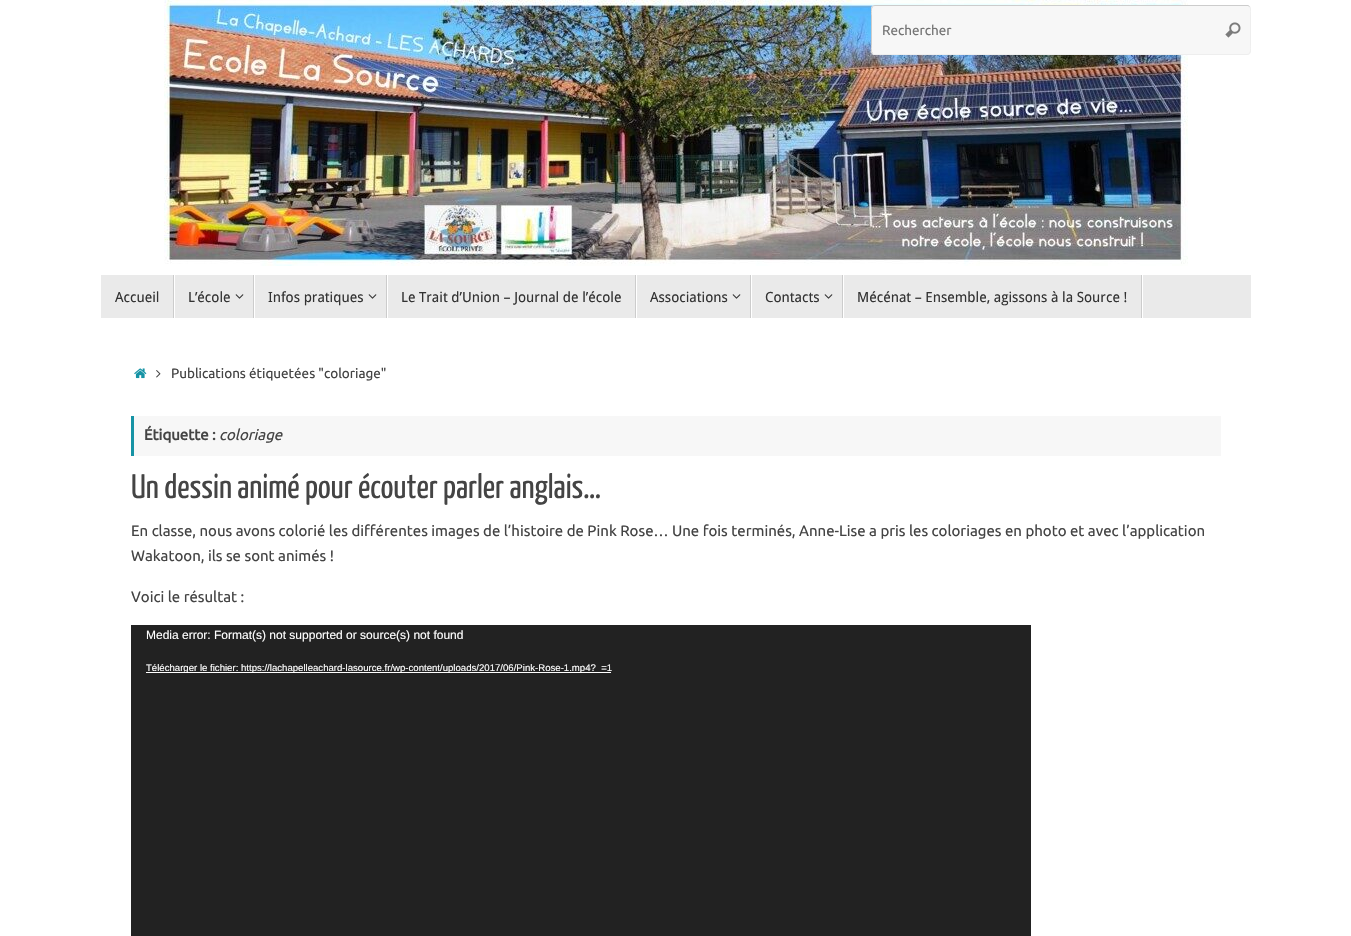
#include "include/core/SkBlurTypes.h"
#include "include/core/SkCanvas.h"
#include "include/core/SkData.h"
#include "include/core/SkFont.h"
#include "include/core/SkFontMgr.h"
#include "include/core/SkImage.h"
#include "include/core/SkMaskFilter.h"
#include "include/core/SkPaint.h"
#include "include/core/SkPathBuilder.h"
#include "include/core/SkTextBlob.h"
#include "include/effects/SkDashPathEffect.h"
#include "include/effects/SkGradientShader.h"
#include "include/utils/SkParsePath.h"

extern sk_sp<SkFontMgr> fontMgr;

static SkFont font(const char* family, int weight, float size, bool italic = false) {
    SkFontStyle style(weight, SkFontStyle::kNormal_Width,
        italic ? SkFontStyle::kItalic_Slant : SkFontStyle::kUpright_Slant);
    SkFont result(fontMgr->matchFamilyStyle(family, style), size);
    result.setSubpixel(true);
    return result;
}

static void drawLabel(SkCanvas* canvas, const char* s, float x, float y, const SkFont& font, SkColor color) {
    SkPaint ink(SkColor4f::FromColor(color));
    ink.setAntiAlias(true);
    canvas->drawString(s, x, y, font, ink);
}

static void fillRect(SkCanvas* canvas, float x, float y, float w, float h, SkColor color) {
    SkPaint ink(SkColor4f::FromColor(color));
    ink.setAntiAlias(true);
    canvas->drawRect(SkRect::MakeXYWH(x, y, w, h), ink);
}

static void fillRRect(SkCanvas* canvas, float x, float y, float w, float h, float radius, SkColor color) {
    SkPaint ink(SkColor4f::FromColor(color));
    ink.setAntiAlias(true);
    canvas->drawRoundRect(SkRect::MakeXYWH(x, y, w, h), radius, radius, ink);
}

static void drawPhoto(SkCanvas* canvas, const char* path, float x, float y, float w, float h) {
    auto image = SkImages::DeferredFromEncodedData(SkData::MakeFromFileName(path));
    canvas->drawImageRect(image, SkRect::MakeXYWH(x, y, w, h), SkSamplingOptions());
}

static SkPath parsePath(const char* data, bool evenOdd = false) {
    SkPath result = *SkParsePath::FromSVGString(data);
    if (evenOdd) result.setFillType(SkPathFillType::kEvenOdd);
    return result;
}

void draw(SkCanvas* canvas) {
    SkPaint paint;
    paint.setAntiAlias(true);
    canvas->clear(0xFFFFFFFF);
    drawPhoto(canvas, "assets/img1.png", 164, 0, 1024, 266);
    fillRRect(canvas, 871, 5, 380, 50, 4, 0xFFF7F7F7);
    canvas->save();
    canvas->clipRect(SkRect::MakeXYWH(871, 5, 380, 50));
    paint.setStroke(true);
    paint.setStrokeWidth(1);
    paint.setColor(0xFFEEEEEE);
    canvas->drawPath(parsePath("M1249.5 6.5C1251.5 8.5 1250.5 14.5 1250.5 16V44C1250.5 46.5 1252 54.5 1247 54.5H874L872.5 53.5"), paint);
    paint.setColor(0xFFCCCCCC);
    canvas->drawPath(parsePath("M872.5 53.5C870.5 51.5 871.5 45.5 871.5 44V16C871.5 13.5 870 5.5 875 5.5H1248L1249.5 6.5"), paint);
    canvas->restore();
    SkFont font1 = font("Ubuntu", 400, 13.5f);
    drawLabel(canvas, "Rechercher", 882, 35, font1, 0xFF757575);
    drawPhoto(canvas, "assets/img2.png", 1225, 22, 16, 16);
    fillRect(canvas, 101, 275, 1150, 43, 0xFFEAEAEA);
    fillRect(canvas, 174, 275, 1, 43, 0xFFFFFFFF);
    fillRect(canvas, 173, 275, 1, 43, 0xFFCCCCCC);
    SkFont font2 = font("Droid Sans", 400, 14);
    drawLabel(canvas, "Accueil", 115, 302, font2, 0xFF333333);
    fillRect(canvas, 254, 275, 1, 43, 0xFFFFFFFF);
    fillRect(canvas, 253, 275, 1, 43, 0xFFCCCCCC);
    drawLabel(canvas, "L’école", 188, 302, font2, 0xFF333333);
    drawPhoto(canvas, "assets/img3.png", 235, 294, 9, 5);
    fillRect(canvas, 387, 275, 1, 43, 0xFFFFFFFF);
    fillRect(canvas, 386, 275, 1, 43, 0xFFCCCCCC);
    drawLabel(canvas, "Infos pratiques", 268, 302, font2, 0xFF333333);
    drawPhoto(canvas, "assets/img3.png", 368, 294, 9, 5);
    fillRect(canvas, 636, 275, 1, 43, 0xFFFFFFFF);
    fillRect(canvas, 635, 275, 1, 43, 0xFFCCCCCC);
    drawLabel(canvas, "Le Trait d’Union – Journal de l’école", 401, 302, font2, 0xFF333333);
    fillRect(canvas, 751, 275, 1, 43, 0xFFFFFFFF);
    fillRect(canvas, 750, 275, 1, 43, 0xFFCCCCCC);
    drawLabel(canvas, "Associations", 650, 302, font2, 0xFF333333);
    drawPhoto(canvas, "assets/img3.png", 732, 294, 9, 5);
    fillRect(canvas, 843, 275, 1, 43, 0xFFFFFFFF);
    fillRect(canvas, 842, 275, 1, 43, 0xFFCCCCCC);
    drawLabel(canvas, "Contacts", 765, 302, font2, 0xFF333333);
    drawPhoto(canvas, "assets/img3.png", 824, 294, 9, 5);
    fillRect(canvas, 1142, 275, 1, 43, 0xFFFFFFFF);
    fillRect(canvas, 1141, 275, 1, 43, 0xFFCCCCCC);
    drawLabel(canvas, "Mécénat – Ensemble, agissons à la Source !", 857, 302, font2, 0xFF333333);
    drawPhoto(canvas, "assets/img4.png", 134, 368, 13, 11);
    drawPhoto(canvas, "assets/img5.png", 156, 370, 5, 8);
    drawLabel(canvas, "Publications étiquetées \"coloriage\"", 171, 378, font1, 0xFF444444);
    fillRect(canvas, 134, 416, 1087, 40, 0xFFF7F7F7);
    fillRect(canvas, 131, 416, 3, 40, 0xFF1693A5);
    SkFont font3 = font("Ubuntu", 700, 15);
    drawLabel(canvas, "Étiquette :", 144, 440, font3, 0xFF444444);
    SkFont font4 = font("Ubuntu", 400, 15, true);
    drawLabel(canvas, "coloriage", 219, 440, font4, 0xFF444444);
    SkFont font5 = font("Yanone Kaffeesatz", 400, 34);
    drawLabel(canvas, "Un dessin animé pour écouter parler anglais…", 131, 498, font5, 0xFF444444);
    SkFont font6 = font("Ubuntu", 400, 15);
    drawLabel(canvas, "En classe, nous avons colorié les différentes images de l’histoire de Pink Rose… Une fois terminés, Anne-Lise a pris les coloriages en photo et avec l’application", 131, 536, font6, 0xFF444444);
    drawLabel(canvas, "Wakatoon, ils se sont animés !", 131, 561, font6, 0xFF444444);
    drawLabel(canvas, "Voici le résultat :", 131, 602, font6, 0xFF444444);
    fillRect(canvas, 131, 625, 900, 311, 0xFF222222);
    SkFont font7 = font("Liberation Sans", 400, 12);
    drawLabel(canvas, "Media error: Format(s) not supported or source(s) not found", 146, 639, font7, 0xFFFFFFFF);
    fillRect(canvas, 146, 672, 465, 1, 0xFFFFFFFF);
    SkFont font8 = font("Liberation Sans", 400, 9.6f);
    drawLabel(canvas, "Télécharger le fichier: https://lachapelleachard-lasource.fr/wp-content/uploads/2017/06/Pink-Rose-1.mp4?_=1", 146, 671, font8, 0xFFFFFFFF);
}
